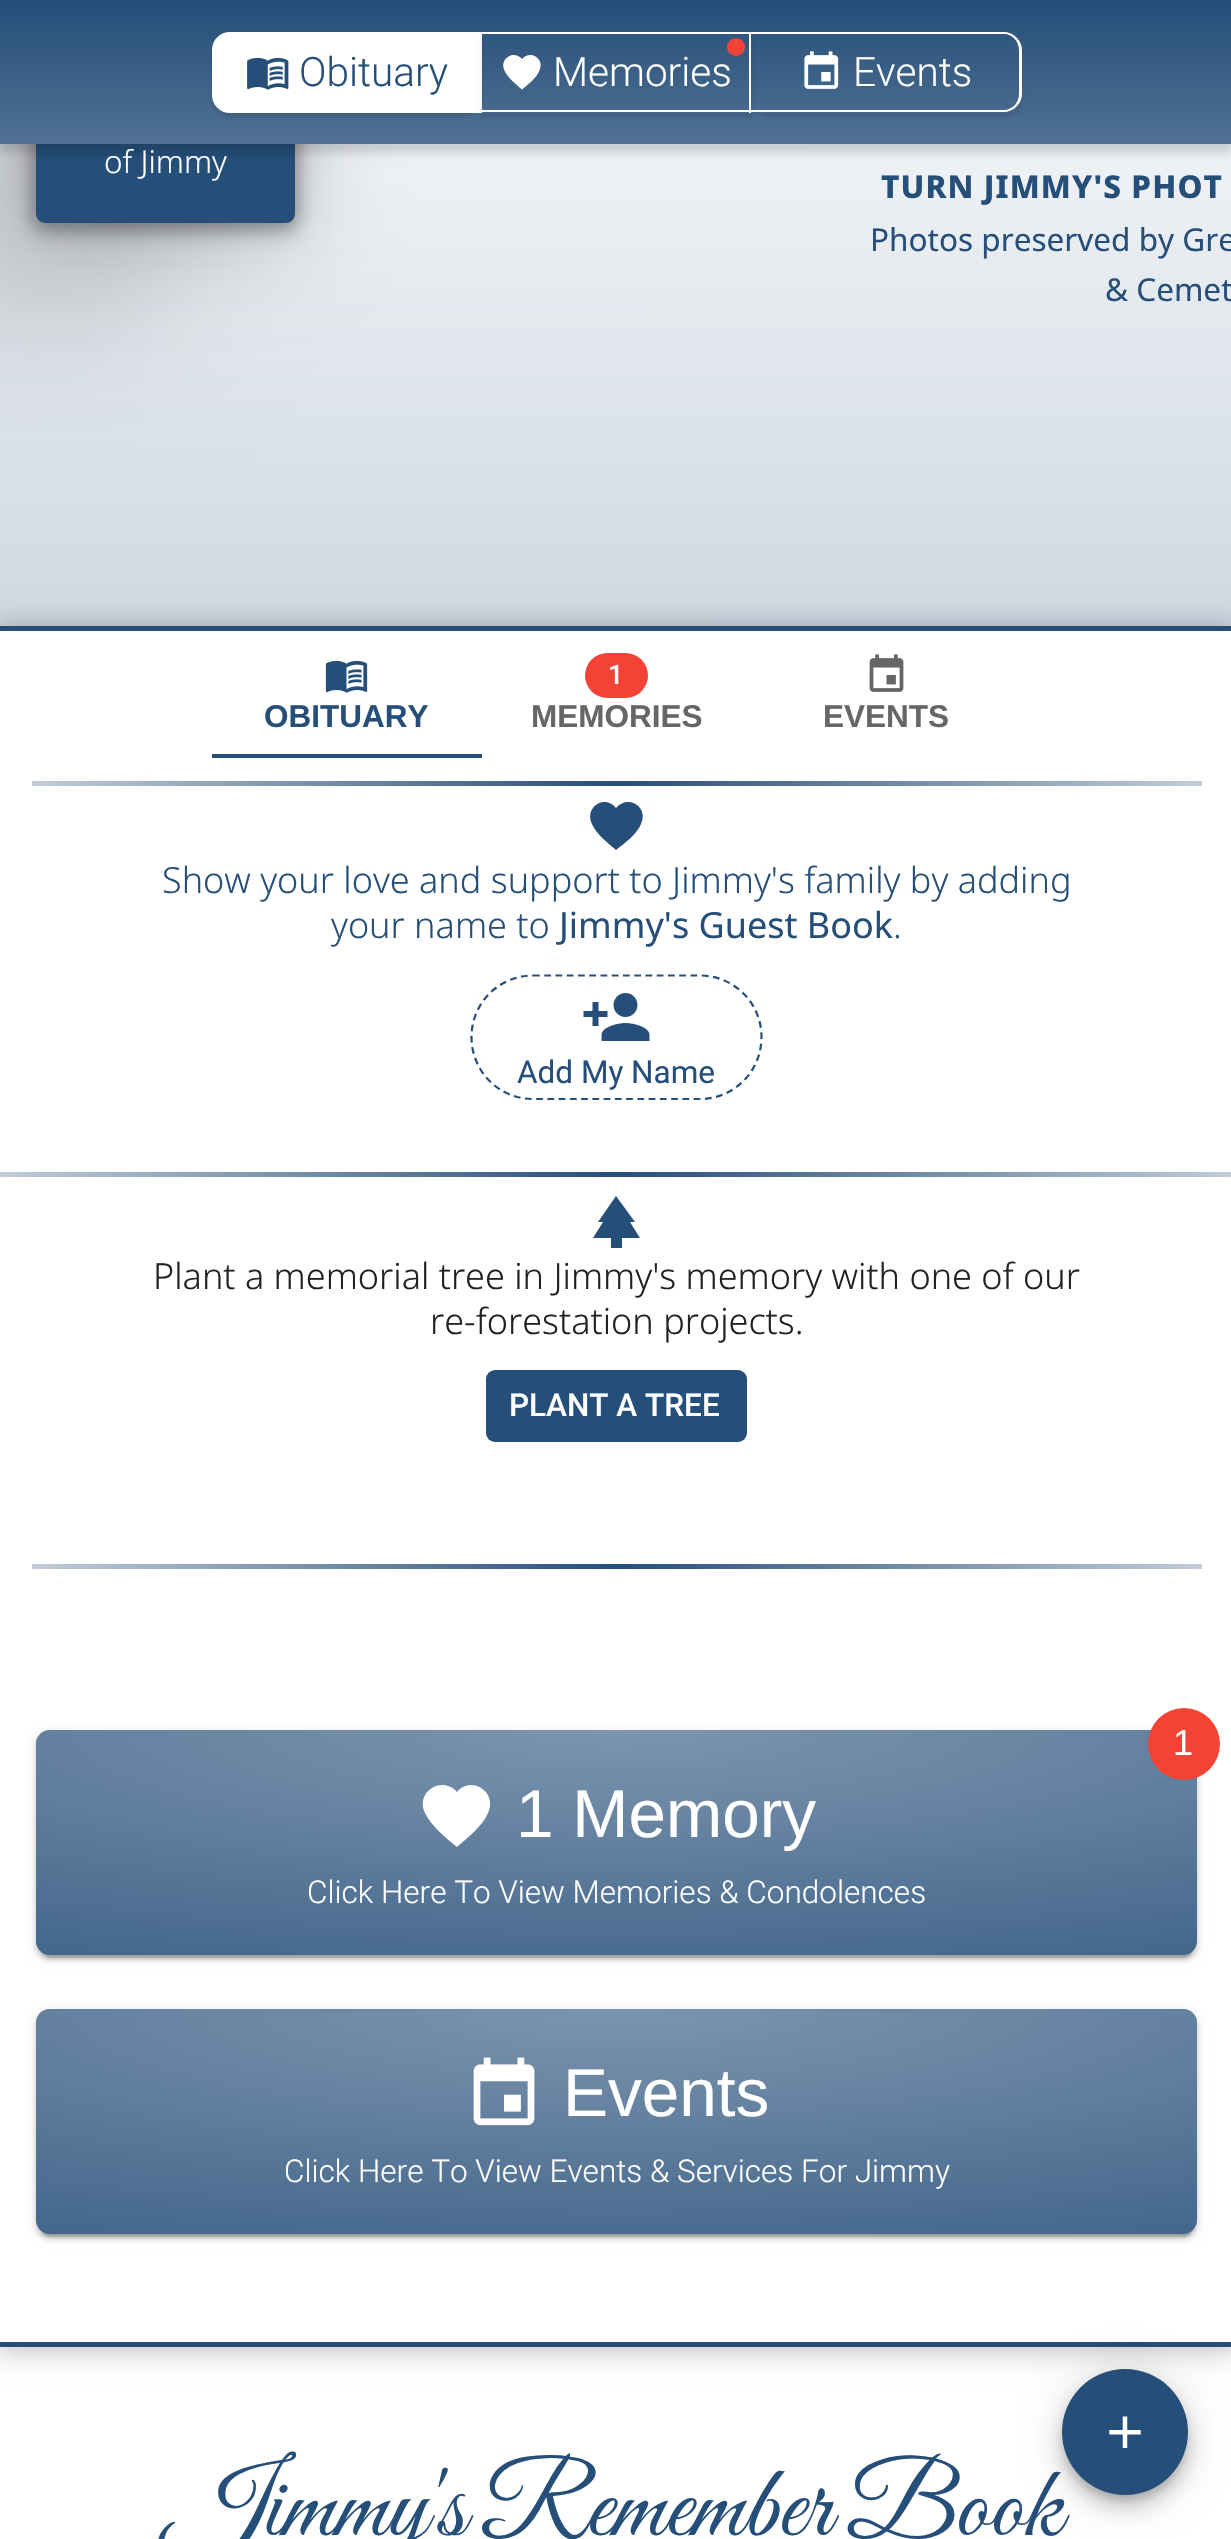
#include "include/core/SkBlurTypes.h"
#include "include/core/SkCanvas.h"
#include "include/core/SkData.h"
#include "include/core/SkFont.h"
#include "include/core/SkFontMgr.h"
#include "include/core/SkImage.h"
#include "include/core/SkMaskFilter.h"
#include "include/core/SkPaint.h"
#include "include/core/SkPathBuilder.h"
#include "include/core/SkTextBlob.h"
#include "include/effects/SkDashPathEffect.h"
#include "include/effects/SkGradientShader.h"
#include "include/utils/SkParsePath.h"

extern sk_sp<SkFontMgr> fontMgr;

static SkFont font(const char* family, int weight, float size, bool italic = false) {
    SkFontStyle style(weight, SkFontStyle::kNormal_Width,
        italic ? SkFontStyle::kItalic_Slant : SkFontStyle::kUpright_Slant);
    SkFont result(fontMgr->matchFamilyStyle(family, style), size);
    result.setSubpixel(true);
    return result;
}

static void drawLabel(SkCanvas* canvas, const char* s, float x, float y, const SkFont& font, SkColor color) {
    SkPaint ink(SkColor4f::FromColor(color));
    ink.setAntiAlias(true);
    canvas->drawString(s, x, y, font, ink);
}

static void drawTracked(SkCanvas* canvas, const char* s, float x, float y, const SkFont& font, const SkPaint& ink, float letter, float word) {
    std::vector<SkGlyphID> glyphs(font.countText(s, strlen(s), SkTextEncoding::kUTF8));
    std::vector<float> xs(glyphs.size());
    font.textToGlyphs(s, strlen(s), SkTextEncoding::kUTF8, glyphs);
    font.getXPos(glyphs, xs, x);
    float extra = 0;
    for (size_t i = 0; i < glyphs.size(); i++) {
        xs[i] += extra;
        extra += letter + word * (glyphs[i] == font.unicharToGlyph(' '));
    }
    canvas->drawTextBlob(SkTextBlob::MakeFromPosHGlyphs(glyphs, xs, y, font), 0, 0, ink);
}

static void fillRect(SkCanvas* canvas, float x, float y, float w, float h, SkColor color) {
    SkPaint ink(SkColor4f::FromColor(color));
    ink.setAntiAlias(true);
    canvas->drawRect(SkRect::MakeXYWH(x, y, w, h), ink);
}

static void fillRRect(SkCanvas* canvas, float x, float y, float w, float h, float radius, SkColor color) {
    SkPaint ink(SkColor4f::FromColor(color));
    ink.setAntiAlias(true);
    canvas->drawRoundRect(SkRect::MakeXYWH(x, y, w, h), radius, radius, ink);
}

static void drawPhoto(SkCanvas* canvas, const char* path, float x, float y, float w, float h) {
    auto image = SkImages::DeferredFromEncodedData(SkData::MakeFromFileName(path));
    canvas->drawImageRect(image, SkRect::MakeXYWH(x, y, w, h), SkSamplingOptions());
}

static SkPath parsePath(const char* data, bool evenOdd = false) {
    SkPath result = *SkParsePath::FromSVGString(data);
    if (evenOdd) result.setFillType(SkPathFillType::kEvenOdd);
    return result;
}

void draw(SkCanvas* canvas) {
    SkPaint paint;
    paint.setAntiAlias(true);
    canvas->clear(0xFFFFFFFF);
    canvas->save();
    canvas->clipPath(parsePath("M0 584H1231V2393H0ZM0 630H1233V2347H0Z", true), true);
    paint.setColor(0x40000000);
    paint.setMaskFilter(SkMaskFilter::MakeBlur(kNormal_SkBlurStyle, 13.5f));
    canvas->drawRect(SkRect::MakeXYWH(-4, 626, 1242, 1725), paint);
    paint.setMaskFilter(nullptr);
    canvas->restore();
    {
        const SkColor colors[] = {0x00254E79, 0x38254E79};
        const float stops[] = {0.4f, 1};
        const SkPoint ends[] = {{616, -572}, {617, 626}};
        paint.setShader(SkGradientShader::MakeLinear(ends, colors, stops, 2, SkTileMode::kClamp));
        paint.setAlpha(255);
    }
    canvas->drawRect(SkRect::MakeXYWH(0, 144, 1231, 482), paint);
    paint.setShader(nullptr);
    paint.setColor(0x40000000);
    paint.setMaskFilter(SkMaskFilter::MakeBlur(kNormal_SkBlurStyle, 49.5f));
    canvas->drawRoundRect(SkRect::MakeXYWH(36, -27, 259, 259), 9, 9, paint);
    paint.setMaskFilter(nullptr);
    paint.setColor(0x26000000);
    paint.setMaskFilter(SkMaskFilter::MakeBlur(kNormal_SkBlurStyle, 72));
    canvas->drawRoundRect(SkRect::MakeXYWH(-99, 63, 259, 259), 9, 9, paint);
    paint.setMaskFilter(nullptr);
    paint.setColor(0x59000000);
    paint.setMaskFilter(SkMaskFilter::MakeBlur(kNormal_SkBlurStyle, 9));
    canvas->drawRoundRect(SkRect::MakeXYWH(32, -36, 267, 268), 14, 14, paint);
    paint.setMaskFilter(nullptr);
    fillRRect(canvas, 36, -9, 259, 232, 9, 0xFF254E79);
    paint.setColor(0x26000000);
    paint.setMaskFilter(SkMaskFilter::MakeBlur(kNormal_SkBlurStyle, 4.5f));
    canvas->drawRect(SkRect::MakeXYWH(0, 9, 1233, 144), paint);
    paint.setMaskFilter(nullptr);
    {
        const SkColor colors[] = {0xFF254E79, 0xFF507193};
        const float stops[] = {0, 1};
        const SkPoint ends[] = {{617, 0}, {617, 144}};
        paint.setShader(SkGradientShader::MakeLinear(ends, colors, stops, 2, SkTileMode::kClamp));
        paint.setAlpha(255);
    }
    canvas->drawRect(SkRect::MakeXYWH(0, 0, 1231, 144), paint);
    paint.setShader(nullptr);
    paint.setColor(0x1A000000);
    paint.setMaskFilter(SkMaskFilter::MakeBlur(kNormal_SkBlurStyle, 2));
    canvas->drawRoundRect(SkRect::MakeXYWH(212, 36, 270, 81), 18, 18, paint);
    paint.setMaskFilter(nullptr);
    paint.setColor(0xFFFFFFFF);
    canvas->drawPath(parsePath("M230 33H481V112H230C220.5 112 213 104.5 213 95V50C213 40.5 220.5 33 230 33Z"), paint);
    paint.setStroke(true);
    paint.setStrokeWidth(2);
    canvas->drawPath(parsePath("M230 33H481V112H230C220.5 112 213 104.5 213 95V50C213 40.5 220.5 33 230 33Z"), paint);
    drawPhoto(canvas, "assets/img1.png", 247, 57, 42, 33);
    SkFont font1 = font("Roboto", 300, 40.5f);
    drawLabel(canvas, "Obituary", 299, 86, font1, 0xFF254E79);
    canvas->save();
    canvas->clipPath(parsePath("M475 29H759V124H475ZM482 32H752V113H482Z", true), true);
    paint.setStroke(false);
    paint.setColor(0x1A000000);
    paint.setMaskFilter(SkMaskFilter::MakeBlur(kNormal_SkBlurStyle, 2));
    canvas->drawRect(SkRect::MakeXYWH(482, 36, 270, 81), paint);
    paint.setMaskFilter(nullptr);
    canvas->restore();
    fillRect(canvas, 482, 32, 270, 2, 0xFFFFFFFF);
    fillRect(canvas, 749, 32, 2, 81, 0xFFFFFFFF);
    fillRect(canvas, 482, 110, 270, 2, 0xFFFFFFFF);
    paint.setColor(0xFFF44336);
    canvas->drawCircle(736, 47, 9, paint);
    paint.setColor(0xFFFFFFFF);
    canvas->drawPath(parsePath("M522 89.5C516 84 507.5 78 504.5 70.5C499 58.5 514 49.5 522 59C530 49.5 545 58.5 539.5 70.5C536.5 78 528 84.5 522 89.5Z"), paint);
    drawLabel(canvas, "Memories", 553, 86, font1, 0xFFFFFFFF);
    canvas->save();
    canvas->clipPath(parsePath("M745 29H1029V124H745ZM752 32H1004C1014 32 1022 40 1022 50V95C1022 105 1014 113 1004 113H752Z", true), true);
    paint.setColor(0x1A000000);
    paint.setMaskFilter(SkMaskFilter::MakeBlur(kNormal_SkBlurStyle, 2));
    canvas->drawRoundRect(SkRect::MakeXYWH(752, 36, 270, 81), 18, 18, paint);
    paint.setMaskFilter(nullptr);
    canvas->restore();
    paint.setColor(0xFFFFFFFF);
    canvas->drawPath(parsePath("M752 32H1004C1013 32 1022 40 1022 50V94C1022 104 1013 112 1004 112H752ZM752 34H1004C1012 34 1019 41 1019 50V94C1019 103 1012 110 1004 110H752Z", true), paint);
    drawPhoto(canvas, "assets/img2.png", 804, 51, 35, 38);
    drawLabel(canvas, "Events", 853, 86, font1, 0xFFFFFFFF);
    fillRect(canvas, 0, 626, 1231, 5, 0xFF254E79);
    SkFont font2 = font("Noto Sans", 300, 31.5f);
    drawLabel(canvas, "of Jimmy", 104, 173, font2, 0xFFFFFFFF);
    SkFont font3 = font("Noto Sans", 800, 31.5f);
    paint.setColor(0xFF254E79);
    drawTracked(canvas, "TURN JIMMY'S PHOT", 881, 198, font3, paint, 1.1f, 0);
    SkFont font4 = font("Noto Sans", 400, 31.5f);
    drawLabel(canvas, "Photos preserved by Gre", 870, 251, font4, 0xFF254E79);
    drawLabel(canvas, "& Cemet", 1105, 301, font4, 0xFF254E79);
    drawPhoto(canvas, "assets/img3.png", 325, 660, 43, 33);
    SkFont font5 = font("Liberation Sans", 700, 31.5f);
    drawLabel(canvas, "OBITUARY", 264, 727, font5, 0xFF254E79);
    fillRRect(canvas, 585, 653, 63, 45, 22.5f, 0xFFF44336);
    SkFont font6 = font("Roboto", 500, 27);
    paint.setColor(0xFFFFFFFF);
    drawTracked(canvas, "1", 608, 684, font6, paint, 1, 0);
    drawLabel(canvas, "MEMORIES", 531, 727, font5, 0xFF666666);
    drawPhoto(canvas, "assets/img4.png", 869, 654, 35, 38);
    drawLabel(canvas, "EVENTS", 823, 727, font5, 0xFF666666);
    fillRect(canvas, 212, 754, 270, 4, 0xFF254E79);
    fillRect(canvas, 0, 2342, 1231, 5, 0xFF254E79);
    {
        const SkColor colors[] = {0xFFFFFFFF, 0xFF254E79, 0xFFFFFFFF};
        const float stops[] = {0, 0.5f, 1};
        const SkPoint ends[] = {{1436, 783}, {-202, 783}};
        paint.setShader(SkGradientShader::MakeLinear(ends, colors, stops, 3, SkTileMode::kClamp));
        paint.setAlpha(255);
    }
    canvas->drawRect(SkRect::MakeXYWH(32, 781, 1170, 5), paint);
    paint.setShader(nullptr);
    paint.setColor(0xFF254E79);
    canvas->drawPath(parsePath("M616 850C608 843 596 834 592 824C584 807 605 794 616 808C628 794 649 807 641 824C637 834 625 843 616 850Z"), paint);
    SkFont font7 = font("Noto Sans", 300, 36);
    drawLabel(canvas, "Show your love and support to Jimmy's family by adding", 162, 893, font7, 0xFF254E79);
    drawLabel(canvas, "your name to", 331, 938, font7, 0xFF254E79);
    SkFont font8 = font("Noto Sans", 400, 36);
    drawLabel(canvas, "Jimmy's Guest Book", 559, 938, font8, 0xFF254E79);
    drawLabel(canvas, ".", 893, 938, font7, 0xFF254E79);
    paint.setStroke(true);
    paint.setStrokeWidth(2.2f);
    paint.setPathEffect(SkDashPathEffect::Make({{6.75f, 4.5f}}, 0));
    canvas->drawPath(parsePath("M533 975.5H700C734 975.5 761.5 1003 761.5 1037C761.5 1071.5 734 1099 700 1099H533C499 1099 471.5 1071.5 471.5 1037C471.5 1003 499 975.5 533 975.5Z"), paint);
    paint.setPathEffect(nullptr);
    drawPhoto(canvas, "assets/img5.png", 583, 993, 67, 48);
    SkFont font9 = font("Roboto", 400, 31.5f);
    drawLabel(canvas, "Add My Name", 517, 1083, font9, 0xFF254E79);
    paint.setStroke(false);
    {
        const SkColor colors[] = {0xFFFFFFFF, 0xFF254E79, 0xFFFFFFFF};
        const float stops[] = {0, 0.5f, 1};
        const SkPoint ends[] = {{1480, 1175}, {-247, 1175}};
        paint.setShader(SkGradientShader::MakeLinear(ends, colors, stops, 3, SkTileMode::kClamp));
        paint.setAlpha(255);
    }
    canvas->drawRect(SkRect::MakeXYWH(0, 1172, 1231, 5), paint);
    paint.setShader(nullptr);
    paint.setColor(0xFF254E79);
    canvas->drawPath(parsePath("M630 1222H635L616 1196L598 1222H603L593 1238H611V1248H622V1238H640Z"), paint);
    drawLabel(canvas, "Plant a memorial tree in Jimmy's memory with one of our", 153, 1289, font7, 0xFF212121);
    drawLabel(canvas, "re-forestation projects.", 430, 1334, font7, 0xFF212121);
    fillRRect(canvas, 486, 1370, 261, 72, 9, 0xFF254E79);
    SkFont font10 = font("Roboto", 500, 31.5f);
    drawLabel(canvas, "PLANT A TREE", 509, 1416, font10, 0xFFFFFFFF);
    {
        const SkColor colors[] = {0xFFFFFFFF, 0xFF254E79, 0xFFFFFFFF};
        const float stops[] = {0, 0.5f, 1};
        const SkPoint ends[] = {{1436, 1566}, {-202, 1566}};
        paint.setShader(SkGradientShader::MakeLinear(ends, colors, stops, 3, SkTileMode::kClamp));
        paint.setAlpha(255);
    }
    canvas->drawRect(SkRect::MakeXYWH(32, 1564, 1170, 5), paint);
    paint.setShader(nullptr);
    paint.setColor(0x1F000000);
    paint.setMaskFilter(SkMaskFilter::MakeBlur(kNormal_SkBlurStyle, 5.5f));
    canvas->drawRoundRect(SkRect::MakeXYWH(36, 1733, 1161, 225), 14, 14, paint);
    paint.setMaskFilter(nullptr);
    paint.setColor(0x24000000);
    paint.setMaskFilter(SkMaskFilter::MakeBlur(kNormal_SkBlurStyle, 2));
    canvas->drawRoundRect(SkRect::MakeXYWH(36, 1735, 1161, 225), 14, 14, paint);
    paint.setMaskFilter(nullptr);
    paint.setColor(0x33000000);
    paint.setMaskFilter(SkMaskFilter::MakeBlur(kNormal_SkBlurStyle, 1));
    canvas->drawRoundRect(SkRect::MakeXYWH(41, 1742, 1152, 216), 9, 9, paint);
    paint.setMaskFilter(nullptr);
    fillRRect(canvas, 36, 1730, 1161, 225, 14, 0xFF254E79);
    {
        const SkColor colors[] = {0x66FFFFFF, 0x00FFFFFF};
        const float stops[] = {0, 1};
        SkMatrix m = SkMatrix::Translate(617, 1730).preScale(1962, 380);
        paint.setShader(SkGradientShader::MakeRadial({0, 0}, 1, colors, stops, 2, SkTileMode::kClamp, 0, &m));
        paint.setAlpha(255);
    }
    canvas->drawRoundRect(SkRect::MakeXYWH(36, 1730, 1161, 225), 14, 14, paint);
    paint.setShader(nullptr);
    paint.setColor(0xFFF44336);
    canvas->drawCircle(1184, 1744, 36, paint);
    SkFont font11 = font("Liberation Sans", 400, 36);
    drawLabel(canvas, "1", 1173, 1755, font11, 0xFFFFFFFF);
    paint.setColor(0xFFFFFFFF);
    canvas->drawPath(parsePath("M457 1847C446 1838 431 1826 425 1813C415 1792 442 1775 457 1792C471 1775 498 1792 488 1813C483 1826 467 1838 457 1847Z"), paint);
    SkFont font12 = font("Liberation Sans", 400, 67.5f);
    drawLabel(canvas, "1 Memory", 516, 1837, font12, 0xFFFFFFFF);
    SkFont font13 = font("Roboto", 300, 31.5f);
    drawLabel(canvas, "Click Here To View Memories & Condolences", 307, 1903, font13, 0xFFFFFFFF);
    paint.setColor(0x1F000000);
    paint.setMaskFilter(SkMaskFilter::MakeBlur(kNormal_SkBlurStyle, 5.5f));
    canvas->drawRoundRect(SkRect::MakeXYWH(36, 2012, 1161, 225), 14, 14, paint);
    paint.setMaskFilter(nullptr);
    paint.setColor(0x24000000);
    paint.setMaskFilter(SkMaskFilter::MakeBlur(kNormal_SkBlurStyle, 2));
    canvas->drawRoundRect(SkRect::MakeXYWH(36, 2014, 1161, 225), 14, 14, paint);
    paint.setMaskFilter(nullptr);
    paint.setColor(0x33000000);
    paint.setMaskFilter(SkMaskFilter::MakeBlur(kNormal_SkBlurStyle, 1));
    canvas->drawRoundRect(SkRect::MakeXYWH(41, 2021, 1152, 216), 9, 9, paint);
    paint.setMaskFilter(nullptr);
    fillRRect(canvas, 36, 2009, 1161, 225, 14, 0xFF254E79);
    {
        const SkColor colors[] = {0x66FFFFFF, 0x00FFFFFF};
        const float stops[] = {0, 1};
        SkMatrix m = SkMatrix::Translate(617, 2009).preScale(1962, 380);
        paint.setShader(SkGradientShader::MakeRadial({0, 0}, 1, colors, stops, 2, SkTileMode::kClamp, 0, &m));
        paint.setAlpha(255);
    }
    canvas->drawRoundRect(SkRect::MakeXYWH(36, 2009, 1161, 225), 14, 14, paint);
    drawPhoto(canvas, "assets/img6.png", 473, 2057, 62, 69);
    drawLabel(canvas, "Events", 563, 2116, font12, 0xFFFFFFFF);
    drawLabel(canvas, "Click Here To View Events & Services For Jimmy", 284, 2182, font13, 0xFFFFFFFF);
    SkFont font14 = font("Great Vibes", 400, 103.5f);
    drawLabel(canvas, "Jimmy's", 164, 2535, font14, 0xFF254E79);
    paint.setShader(nullptr);
    paint.setColor(0xFF254E79);
    drawTracked(canvas, "Remember Book", 480, 2535, font14, paint, 0, -3);
    paint.setColor(0x1F000000);
    paint.setMaskFilter(SkMaskFilter::MakeBlur(kNormal_SkBlurStyle, 20));
    canvas->drawRoundRect(SkRect::MakeXYWH(1062, 2372, 126, 126), 63, 63, paint);
    paint.setMaskFilter(nullptr);
    paint.setColor(0x24000000);
    paint.setMaskFilter(SkMaskFilter::MakeBlur(kNormal_SkBlurStyle, 11));
    canvas->drawRoundRect(SkRect::MakeXYWH(1062, 2383, 126, 126), 63, 63, paint);
    paint.setMaskFilter(nullptr);
    paint.setColor(0x33000000);
    paint.setMaskFilter(SkMaskFilter::MakeBlur(kNormal_SkBlurStyle, 5.5f));
    canvas->drawRoundRect(SkRect::MakeXYWH(1064, 2378, 122, 122), 61, 61, paint);
    paint.setMaskFilter(nullptr);
    paint.setColor(0xFF254E79);
    canvas->drawCircle(1125, 2432, 63, paint);
    drawPhoto(canvas, "assets/img7.png", 1109, 2416, 32, 32);
}
